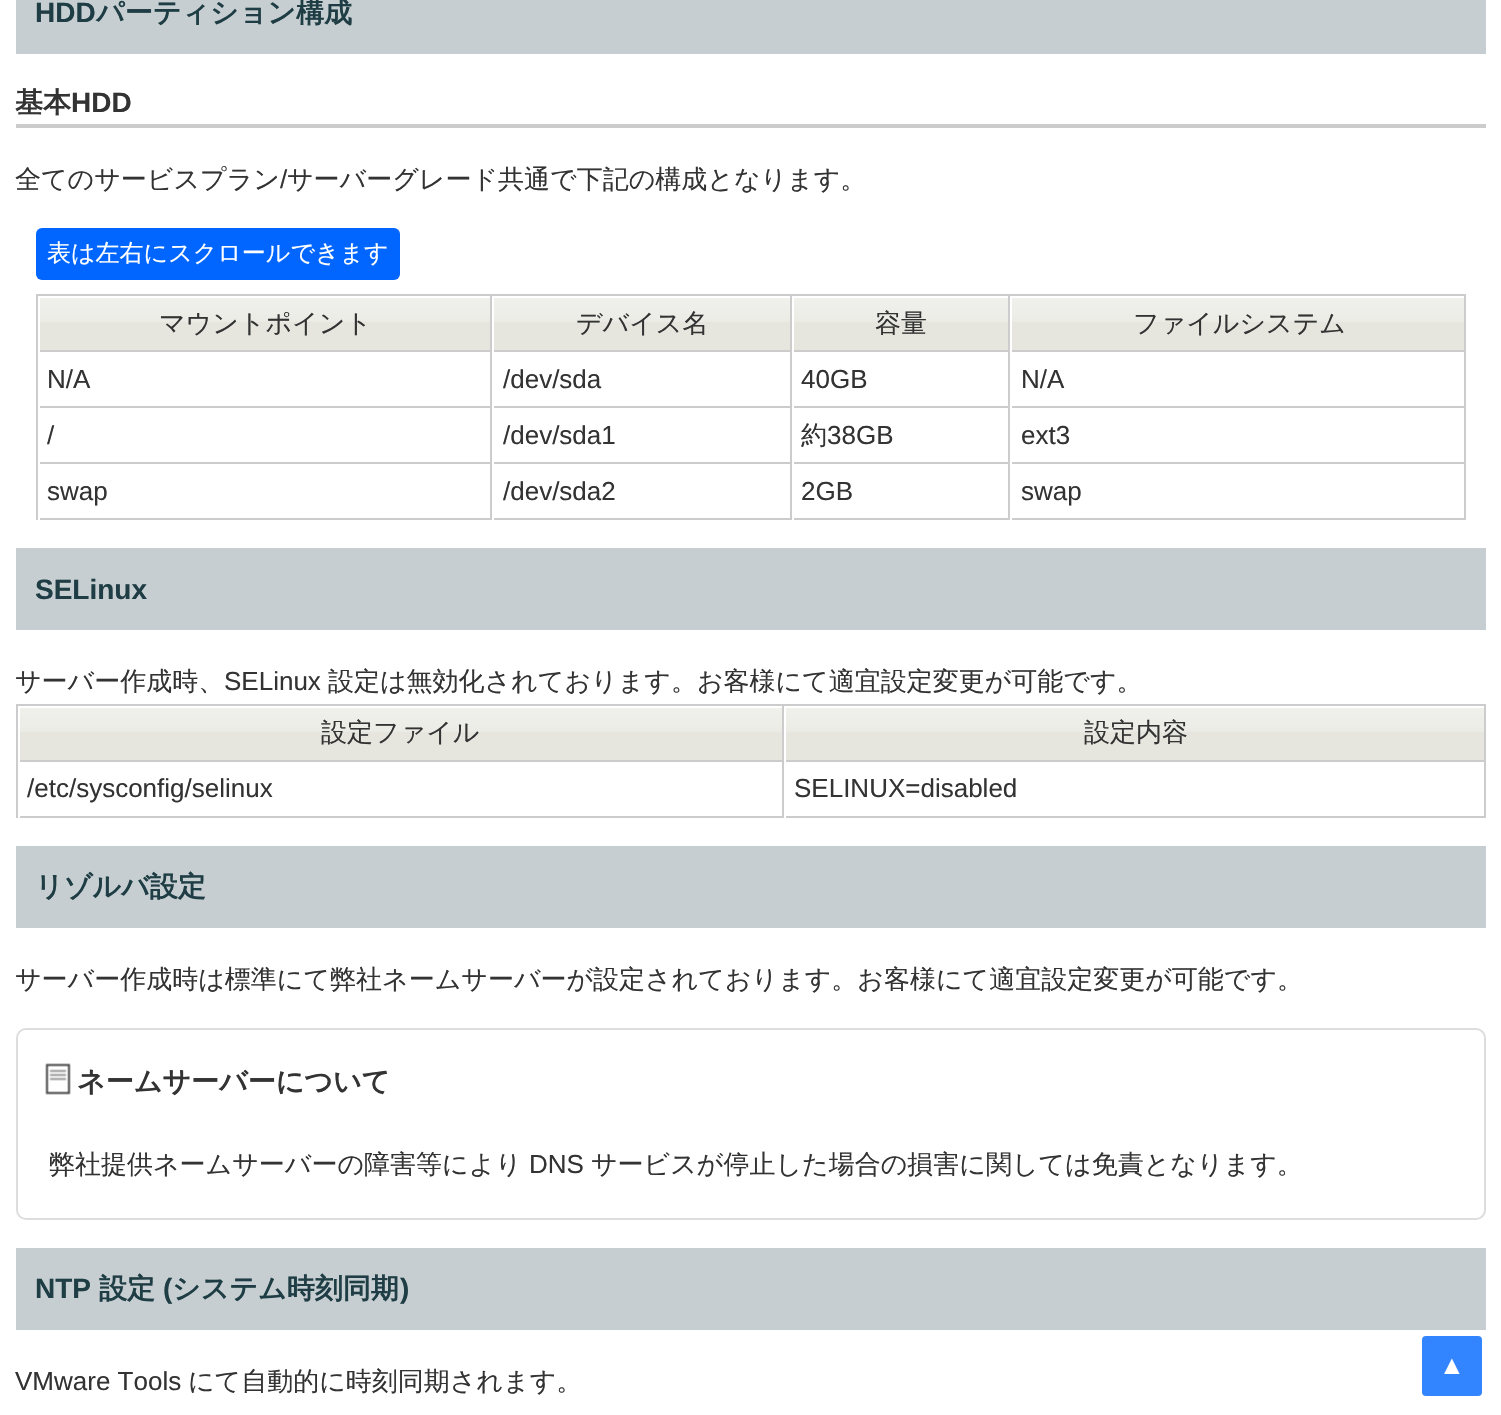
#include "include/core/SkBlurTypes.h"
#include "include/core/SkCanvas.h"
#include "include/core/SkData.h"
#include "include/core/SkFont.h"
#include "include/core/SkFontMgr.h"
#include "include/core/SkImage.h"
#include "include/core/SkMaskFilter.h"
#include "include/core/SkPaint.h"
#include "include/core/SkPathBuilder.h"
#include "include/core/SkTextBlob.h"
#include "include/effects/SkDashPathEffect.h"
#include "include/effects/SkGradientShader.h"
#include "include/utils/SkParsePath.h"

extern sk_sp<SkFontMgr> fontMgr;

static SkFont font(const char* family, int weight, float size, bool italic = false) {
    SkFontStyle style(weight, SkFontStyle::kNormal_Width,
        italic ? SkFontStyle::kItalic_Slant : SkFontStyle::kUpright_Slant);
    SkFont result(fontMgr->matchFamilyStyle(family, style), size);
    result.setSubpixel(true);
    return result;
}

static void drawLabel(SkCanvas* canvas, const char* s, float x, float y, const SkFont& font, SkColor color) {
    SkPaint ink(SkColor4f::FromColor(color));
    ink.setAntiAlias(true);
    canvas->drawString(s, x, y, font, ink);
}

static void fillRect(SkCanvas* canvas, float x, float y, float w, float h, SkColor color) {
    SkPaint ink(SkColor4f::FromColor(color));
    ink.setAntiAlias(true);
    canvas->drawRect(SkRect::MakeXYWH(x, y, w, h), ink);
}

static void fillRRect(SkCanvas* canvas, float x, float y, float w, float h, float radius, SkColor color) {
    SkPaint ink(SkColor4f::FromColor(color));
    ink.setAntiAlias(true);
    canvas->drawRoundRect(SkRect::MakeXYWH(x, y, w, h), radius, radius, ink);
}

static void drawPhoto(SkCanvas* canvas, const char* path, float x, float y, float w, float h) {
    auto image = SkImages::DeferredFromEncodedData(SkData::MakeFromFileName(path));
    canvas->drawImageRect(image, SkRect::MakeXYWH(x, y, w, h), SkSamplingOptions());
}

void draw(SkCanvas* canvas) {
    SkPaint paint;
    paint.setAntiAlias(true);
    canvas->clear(0xFFFFFFFF);
    paint.setColor(0xFFC6CED1);
    canvas->drawRect(SkRect::MakeXYWH(26, -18, 1450, 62), paint);
    paint.setStroke(true);
    paint.setStrokeWidth(20);
    canvas->drawRect(SkRect::MakeXYWH(26, -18, 1450, 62), paint);
    SkFont font1 = font("Liberation Sans", 700, 28);
    drawLabel(canvas, "HDD", 35, 22, font1, 0xFF1F3D44);
    SkFont font2 = font("WenQuanYi Zen Hei", 700, 28);
    drawLabel(canvas, "パーティション構成", 96, 22, font2, 0xFF1F3D44);
    fillRect(canvas, 16, 124, 1470, 4, 0xFFCCCCCC);
    drawLabel(canvas, "基本", 15, 112, font2, 0xFF333333);
    drawLabel(canvas, "HDD", 71, 112, font1, 0xFF333333);
    SkFont font3 = font("WenQuanYi Zen Hei", 500, 26);
    drawLabel(canvas, "全てのサービスプラン", 15, 188, font3, 0xFF333333);
    SkFont font4 = font("Liberation Sans", 400, 26);
    drawLabel(canvas, "/", 280, 188, font4, 0xFF333333);
    drawLabel(canvas, "サーバーグレード共通で下記の構成となります。", 287, 188, font3, 0xFF333333);
    fillRRect(canvas, 36, 228, 364, 52, 6, 0xFF0066FF);
    SkFont font5 = font("WenQuanYi Zen Hei", 500, 24);
    drawLabel(canvas, "表は左右にスクロールできます", 47, 261, font5, 0xFFFFFFFF);
    fillRect(canvas, 36, 294, 1430, 2, 0xFFCCCCCC);
    fillRect(canvas, 36, 294, 2, 226, 0xFFCCCCCC);
    fillRect(canvas, 40, 322, 450, 28, 0xFFE6E6DF);
    drawPhoto(canvas, "assets/img1.png", 40, 298, 450, 24);
    fillRect(canvas, 490, 296, 2, 224, 0xFFCCCCCC);
    fillRect(canvas, 38, 350, 454, 2, 0xFFCCCCCC);
    fillRect(canvas, 38, 350, 2, 2, 0xFFFFFFFF);
    drawLabel(canvas, "マウントポイント", 159, 332, font3, 0xFF333333);
    fillRect(canvas, 494, 322, 296, 28, 0xFFE6E6DF);
    drawPhoto(canvas, "assets/img2.png", 494, 298, 296, 24);
    fillRect(canvas, 790, 296, 2, 224, 0xFFCCCCCC);
    fillRect(canvas, 492, 350, 300, 2, 0xFFCCCCCC);
    fillRect(canvas, 492, 350, 2, 2, 0xFFFFFFFF);
    drawLabel(canvas, "デバイス名", 576, 332, font3, 0xFF333333);
    fillRect(canvas, 794, 322, 214, 28, 0xFFE6E6DF);
    drawPhoto(canvas, "assets/img3.png", 794, 298, 214, 24);
    fillRect(canvas, 1008, 296, 2, 224, 0xFFCCCCCC);
    fillRect(canvas, 792, 350, 218, 2, 0xFFCCCCCC);
    fillRect(canvas, 792, 350, 2, 2, 0xFFFFFFFF);
    drawLabel(canvas, "容量", 875, 332, font3, 0xFF333333);
    fillRect(canvas, 1012, 322, 452, 28, 0xFFE6E6DF);
    drawPhoto(canvas, "assets/img4.png", 1012, 298, 452, 24);
    fillRect(canvas, 1464, 296, 2, 224, 0xFFCCCCCC);
    fillRect(canvas, 1010, 350, 456, 2, 0xFFCCCCCC);
    fillRect(canvas, 1010, 350, 2, 2, 0xFFFFFFFF);
    drawLabel(canvas, "ファイルシステム", 1133, 332, font3, 0xFF333333);
    fillRect(canvas, 38, 406, 1428, 2, 0xFFCCCCCC);
    fillRect(canvas, 38, 406, 2, 2, 0xFFFFFFFF);
    drawLabel(canvas, "N/A", 47, 388, font4, 0xFF333333);
    fillRect(canvas, 492, 406, 2, 2, 0xFFFFFFFF);
    drawLabel(canvas, "/dev/sda", 503, 388, font4, 0xFF333333);
    fillRect(canvas, 792, 406, 2, 2, 0xFFFFFFFF);
    drawLabel(canvas, "40GB", 801, 388, font4, 0xFF333333);
    fillRect(canvas, 1010, 406, 2, 2, 0xFFFFFFFF);
    drawLabel(canvas, "N/A", 1021, 388, font4, 0xFF333333);
    fillRect(canvas, 38, 462, 1428, 2, 0xFFCCCCCC);
    fillRect(canvas, 38, 462, 2, 2, 0xFFFFFFFF);
    drawLabel(canvas, "/", 47, 444, font4, 0xFF333333);
    fillRect(canvas, 492, 462, 2, 2, 0xFFFFFFFF);
    drawLabel(canvas, "/dev/sda1", 503, 444, font4, 0xFF333333);
    fillRect(canvas, 792, 462, 2, 2, 0xFFFFFFFF);
    drawLabel(canvas, "約", 801, 444, font3, 0xFF333333);
    drawLabel(canvas, "38GB", 827, 444, font4, 0xFF333333);
    fillRect(canvas, 1010, 462, 2, 2, 0xFFFFFFFF);
    drawLabel(canvas, "ext3", 1021, 444, font4, 0xFF333333);
    fillRect(canvas, 38, 518, 1428, 2, 0xFFCCCCCC);
    fillRect(canvas, 38, 518, 2, 2, 0xFFFFFFFF);
    drawLabel(canvas, "swap", 47, 500, font4, 0xFF333333);
    fillRect(canvas, 492, 518, 2, 2, 0xFFFFFFFF);
    drawLabel(canvas, "/dev/sda2", 503, 500, font4, 0xFF333333);
    fillRect(canvas, 792, 518, 2, 2, 0xFFFFFFFF);
    drawLabel(canvas, "2GB", 801, 500, font4, 0xFF333333);
    fillRect(canvas, 1010, 518, 2, 2, 0xFFFFFFFF);
    drawLabel(canvas, "swap", 1021, 500, font4, 0xFF333333);
    paint.setStroke(false);
    canvas->drawRect(SkRect::MakeXYWH(26, 558, 1450, 62), paint);
    paint.setStroke(true);
    canvas->drawRect(SkRect::MakeXYWH(26, 558, 1450, 62), paint);
    drawLabel(canvas, "SELinux", 35, 599, font1, 0xFF1F3D44);
    drawLabel(canvas, "サーバー作成時、", 15, 690, font3, 0xFF333333);
    drawLabel(canvas, "SELinux", 224, 690, font4, 0xFF333333);
    drawLabel(canvas, "設定は無効化されております。お客様にて適宜設定変更が可能です。", 328, 690, font3, 0xFF333333);
    fillRect(canvas, 16, 704, 1470, 2, 0xFFCCCCCC);
    fillRect(canvas, 16, 704, 2, 114, 0xFFCCCCCC);
    fillRect(canvas, 20, 732, 762, 28, 0xFFE6E6DF);
    drawPhoto(canvas, "assets/img5.png", 20, 708, 762, 24);
    fillRect(canvas, 782, 706, 2, 112, 0xFFCCCCCC);
    fillRect(canvas, 18, 760, 766, 2, 0xFFCCCCCC);
    fillRect(canvas, 18, 760, 2, 2, 0xFFFFFFFF);
    drawLabel(canvas, "設定ファイル", 321, 741, font3, 0xFF333333);
    fillRect(canvas, 786, 732, 698, 28, 0xFFE6E6DF);
    drawPhoto(canvas, "assets/img6.png", 786, 708, 698, 24);
    fillRect(canvas, 1484, 706, 2, 112, 0xFFCCCCCC);
    fillRect(canvas, 784, 760, 702, 2, 0xFFCCCCCC);
    fillRect(canvas, 784, 760, 2, 2, 0xFFFFFFFF);
    drawLabel(canvas, "設定内容", 1084, 741, font3, 0xFF333333);
    fillRect(canvas, 18, 816, 1468, 2, 0xFFCCCCCC);
    fillRect(canvas, 18, 816, 2, 2, 0xFFFFFFFF);
    drawLabel(canvas, "/etc/sysconfig/selinux", 27, 797, font4, 0xFF333333);
    fillRect(canvas, 784, 816, 2, 2, 0xFFFFFFFF);
    drawLabel(canvas, "SELINUX=disabled", 794, 797, font4, 0xFF333333);
    paint.setStroke(false);
    canvas->drawRect(SkRect::MakeXYWH(26, 856, 1450, 62), paint);
    paint.setStroke(true);
    canvas->drawRect(SkRect::MakeXYWH(26, 856, 1450, 62), paint);
    drawLabel(canvas, "リゾルバ設定", 35, 896, font2, 0xFF1F3D44);
    drawLabel(canvas, "サーバー作成時は標準にて弊社ネームサーバーが設定されております。お客様にて適宜設定変更が可能です。", 15, 988, font3, 0xFF333333);
    paint.setStrokeWidth(2);
    paint.setColor(0xFFDDDDDD);
    canvas->drawRoundRect(SkRect::MakeXYWH(17, 1029, 1468, 190), 9, 9, paint);
    drawPhoto(canvas, "assets/img7.png", 45, 1063, 26, 32);
    drawLabel(canvas, "ネームサーバーについて", 77, 1091, font2, 0xFF333333);
    drawLabel(canvas, "弊社提供ネームサーバーの障害等により", 49, 1173, font3, 0xFF333333);
    drawLabel(canvas, "DNS", 529, 1173, font4, 0xFF333333);
    drawLabel(canvas, "サービスが停止した場合の損害に関しては免責となります。", 591, 1173, font3, 0xFF333333);
    paint.setStroke(false);
    paint.setColor(0xFFC6CED1);
    canvas->drawRect(SkRect::MakeXYWH(26, 1258, 1450, 62), paint);
    paint.setStroke(true);
    paint.setStrokeWidth(20);
    canvas->drawRect(SkRect::MakeXYWH(26, 1258, 1450, 62), paint);
    drawLabel(canvas, "NTP", 35, 1298, font1, 0xFF1F3D44);
    drawLabel(canvas, "設定", 99, 1298, font2, 0xFF1F3D44);
    drawLabel(canvas, "(", 163, 1298, font1, 0xFF1F3D44);
    drawLabel(canvas, "システム時刻同期", 172, 1298, font2, 0xFF1F3D44);
    drawLabel(canvas, ")", 400, 1298, font1, 0xFF1F3D44);
    drawLabel(canvas, "VMware Tools", 15, 1390, font4, 0xFF333333);
    drawLabel(canvas, "にて自動的に時刻同期されます。", 188, 1390, font3, 0xFF333333);
    fillRRect(canvas, 1422, 1336, 60, 60, 4, 0xFF3385FF);
    drawLabel(canvas, "▲", 1439, 1374, font4, 0xFFFFFFFF);
}
